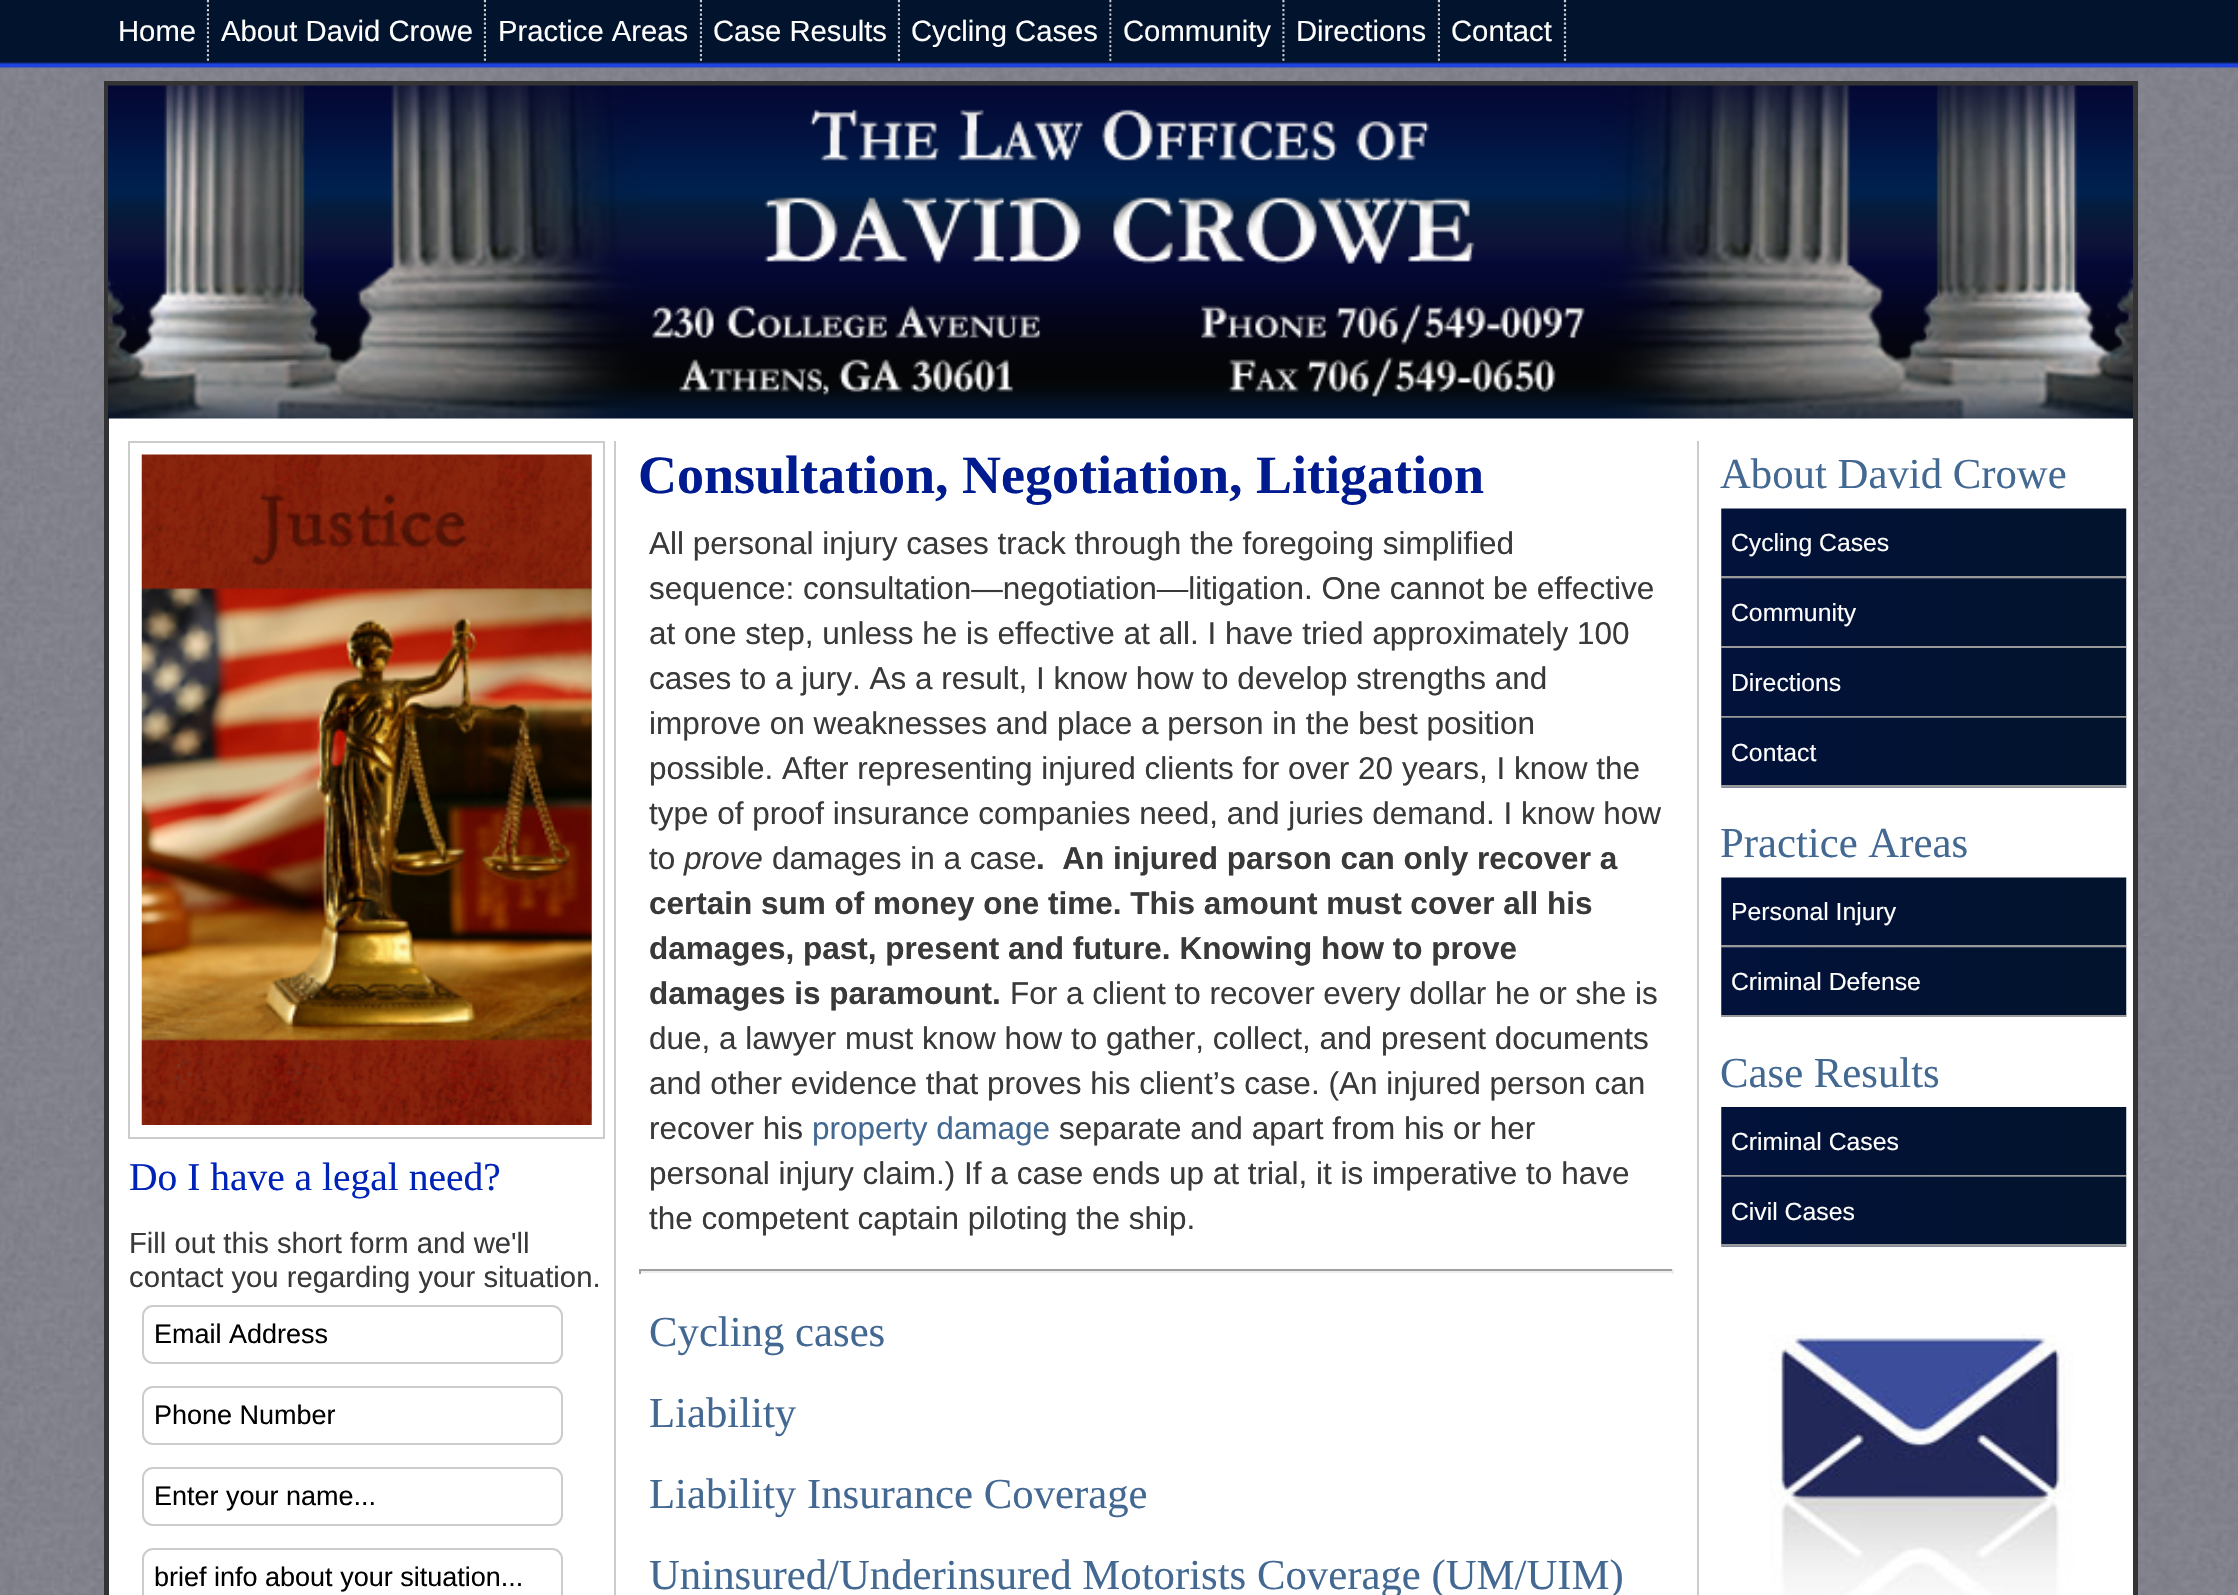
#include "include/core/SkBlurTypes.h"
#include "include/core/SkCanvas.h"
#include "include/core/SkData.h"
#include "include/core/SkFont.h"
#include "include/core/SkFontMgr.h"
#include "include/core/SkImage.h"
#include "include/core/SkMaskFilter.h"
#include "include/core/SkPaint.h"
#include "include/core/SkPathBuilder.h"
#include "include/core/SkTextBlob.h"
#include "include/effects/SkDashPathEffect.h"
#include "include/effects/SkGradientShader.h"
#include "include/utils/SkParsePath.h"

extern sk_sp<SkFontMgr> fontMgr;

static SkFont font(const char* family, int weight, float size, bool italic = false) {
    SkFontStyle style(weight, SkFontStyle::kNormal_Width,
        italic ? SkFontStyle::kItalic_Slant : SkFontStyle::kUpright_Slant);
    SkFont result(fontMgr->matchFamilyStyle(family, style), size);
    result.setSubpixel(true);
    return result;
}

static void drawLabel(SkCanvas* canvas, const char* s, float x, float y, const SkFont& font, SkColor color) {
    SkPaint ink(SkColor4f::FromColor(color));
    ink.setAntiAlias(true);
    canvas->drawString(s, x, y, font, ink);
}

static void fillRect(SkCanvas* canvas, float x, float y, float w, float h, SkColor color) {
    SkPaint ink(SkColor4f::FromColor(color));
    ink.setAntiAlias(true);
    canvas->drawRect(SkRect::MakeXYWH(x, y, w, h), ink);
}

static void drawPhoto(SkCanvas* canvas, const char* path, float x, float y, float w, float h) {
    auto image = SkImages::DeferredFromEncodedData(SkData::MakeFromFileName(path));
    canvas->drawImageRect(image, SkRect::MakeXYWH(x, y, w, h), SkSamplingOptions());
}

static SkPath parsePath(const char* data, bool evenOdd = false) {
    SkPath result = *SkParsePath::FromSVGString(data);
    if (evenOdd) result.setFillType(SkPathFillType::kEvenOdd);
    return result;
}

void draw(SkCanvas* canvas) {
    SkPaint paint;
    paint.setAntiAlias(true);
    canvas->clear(0xFFFFFFFF);
    drawPhoto(canvas, "assets/img1.png", 0, 67, 2238, 1528);
    drawPhoto(canvas, "assets/img2.png", 0, 0, 2238, 68);
    paint.setStroke(true);
    paint.setStrokeWidth(2.2f);
    paint.setColor(0xFFCCCCCC);
    paint.setPathEffect(SkDashPathEffect::Make({{2.25f, 2.25f}}, 0));
    canvas->drawPath(parsePath("M208 0V61"), paint);
    paint.setPathEffect(nullptr);
    SkFont font1 = font("Liberation Sans", 400, 29.25f);
    drawLabel(canvas, "Home", 118, 41, font1, 0xFFFFFFFF);
    drawPhoto(canvas, "assets/img3.png", 209, 0, 1, 61);
    paint.setPathEffect(SkDashPathEffect::Make({{2.25f, 2.25f}}, 0));
    canvas->drawPath(parsePath("M485 0V61"), paint);
    paint.setPathEffect(nullptr);
    drawLabel(canvas, "About David Crowe", 221, 41, font1, 0xFFFFFFFF);
    drawPhoto(canvas, "assets/img4.png", 486, 0, 1, 61);
    paint.setPathEffect(SkDashPathEffect::Make({{2.25f, 2.25f}}, 0));
    canvas->drawPath(parsePath("M701 0V61"), paint);
    paint.setPathEffect(nullptr);
    drawLabel(canvas, "Practice Areas", 498, 41, font1, 0xFFFFFFFF);
    drawPhoto(canvas, "assets/img4.png", 702, 0, 1, 61);
    paint.setPathEffect(SkDashPathEffect::Make({{2.25f, 2.25f}}, 0));
    canvas->drawPath(parsePath("M899 0V61"), paint);
    paint.setPathEffect(nullptr);
    drawLabel(canvas, "Case Results", 713, 41, font1, 0xFFFFFFFF);
    drawPhoto(canvas, "assets/img4.png", 900, 0, 1, 61);
    paint.setPathEffect(SkDashPathEffect::Make({{2.25f, 2.25f}}, 0));
    canvas->drawPath(parsePath("M1110.5 0V61"), paint);
    paint.setPathEffect(nullptr);
    drawLabel(canvas, "Cycling Cases", 911, 41, font1, 0xFFFFFFFF);
    drawPhoto(canvas, "assets/img5.png", 1111, 0, 1, 61);
    paint.setPathEffect(SkDashPathEffect::Make({{2.25f, 2.25f}}, 0));
    canvas->drawPath(parsePath("M1283.5 0V61"), paint);
    paint.setPathEffect(nullptr);
    drawLabel(canvas, "Community", 1123, 41, font1, 0xFFFFFFFF);
    drawPhoto(canvas, "assets/img6.png", 1284, 0, 1, 61);
    paint.setPathEffect(SkDashPathEffect::Make({{2.25f, 2.25f}}, 0));
    canvas->drawPath(parsePath("M1439 0V61"), paint);
    paint.setPathEffect(nullptr);
    drawLabel(canvas, "Directions", 1296, 41, font1, 0xFFFFFFFF);
    drawPhoto(canvas, "assets/img4.png", 1440, 0, 1, 61);
    paint.setPathEffect(SkDashPathEffect::Make({{2.25f, 2.25f}}, 0));
    canvas->drawPath(parsePath("M1565 0V61"), paint);
    paint.setPathEffect(nullptr);
    drawLabel(canvas, "Contact", 1451, 41, font1, 0xFFFFFFFF);
    fillRect(canvas, 109, 418, 2024, 1177, 0xFFFFFFFF);
    paint.setStrokeWidth(5);
    paint.setColor(0xFF333333);
    canvas->drawRect(SkRect::MakeXYWH(106.5f, 83.5f, 2029, 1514), paint);
    drawPhoto(canvas, "assets/img7.png", 108, 85, 2025, 334);
    fillRect(canvas, 1697, 441, 2, 1154, 0xFFCCCCCC);
    fillRect(canvas, 614, 441, 2, 1154, 0xFFCCCCCC);
    SkFont font2 = font("Liberation Serif", 700, 54);
    drawLabel(canvas, "Consultation, Negotiation, Litigation", 638, 493, font2, 0xFF001B8F);
    SkFont font3 = font("Liberation Sans", 400, 31.5f);
    drawLabel(canvas, "All personal injury cases track through the foregoing simplified", 649, 554, font3, 0xFF393939);
    drawLabel(canvas, "sequence: consultation—negotiation—litigation. One cannot be effective", 649, 599, font3, 0xFF393939);
    drawLabel(canvas, "at one step, unless he is effective at all. I have tried approximately 100", 649, 644, font3, 0xFF393939);
    drawLabel(canvas, "cases to a jury. As a result, I know how to develop strengths and", 649, 689, font3, 0xFF393939);
    drawLabel(canvas, "improve on weaknesses and place a person in the best position", 649, 734, font3, 0xFF393939);
    drawLabel(canvas, "possible. After representing injured clients for over 20 years, I know the", 649, 779, font3, 0xFF393939);
    drawLabel(canvas, "type of proof insurance companies need, and juries demand. I know how", 649, 824, font3, 0xFF393939);
    drawLabel(canvas, "to", 649, 869, font3, 0xFF393939);
    SkFont font4 = font("Liberation Sans", 400, 31.5f, true);
    drawLabel(canvas, "prove", 684, 869, font4, 0xFF393939);
    drawLabel(canvas, "damages in a case", 772, 869, font3, 0xFF393939);
    SkFont font5 = font("Liberation Sans", 700, 31.5f);
    drawLabel(canvas, ".  An injured parson can only recover a", 1036, 869, font5, 0xFF393939);
    drawLabel(canvas, "certain sum of money one time. This amount must cover all his", 649, 914, font5, 0xFF393939);
    drawLabel(canvas, "damages, past, present and future. Knowing how to prove", 649, 959, font5, 0xFF393939);
    drawLabel(canvas, "damages is paramount.", 649, 1004, font5, 0xFF393939);
    drawLabel(canvas, "For a client to recover every dollar he or she is", 1010, 1004, font3, 0xFF393939);
    drawLabel(canvas, "due, a lawyer must know how to gather, collect, and present documents", 649, 1049, font3, 0xFF393939);
    drawLabel(canvas, "and other evidence that proves his client’s case. (An injured person can", 649, 1094, font3, 0xFF393939);
    drawLabel(canvas, "recover his", 649, 1139, font3, 0xFF393939);
    drawLabel(canvas, "property damage", 812, 1139, font3, 0xFF436993);
    drawLabel(canvas, "separate and apart from his or her", 1059, 1139, font3, 0xFF393939);
    drawLabel(canvas, "personal injury claim.) If a case ends up at trial, it is imperative to have", 649, 1184, font3, 0xFF393939);
    drawLabel(canvas, "the competent captain piloting the ship.", 649, 1229, font3, 0xFF393939);
    fillRect(canvas, 639, 1269, 1035, 2, 0xFF9F9F9F);
    fillRect(canvas, 1672, 1269, 2, 5, 0xFFEEEEEE);
    fillRect(canvas, 639, 1271, 1035, 2, 0xFFEEEEEE);
    fillRect(canvas, 639, 1269, 2, 5, 0xFF9F9F9F);
    SkFont font6 = font("Liberation Serif", 400, 42.75f);
    drawLabel(canvas, "Cycling cases", 649, 1346, font6, 0xFF436993);
    drawLabel(canvas, "Liability", 649, 1427, font6, 0xFF436993);
    drawLabel(canvas, "Liability Insurance Coverage", 649, 1508, font6, 0xFF436993);
    drawLabel(canvas, "Uninsured/Underinsured Motorists Coverage (UM/UIM)", 649, 1589, font6, 0xFF436993);
    drawLabel(canvas, "About David Crowe", 1720, 488, font6, 0xFF436993);
    drawPhoto(canvas, "assets/img8.png", 1721, 508, 406, 71);
    fillRect(canvas, 1721, 576, 405, 2, 0xFF999999);
    SkFont font7 = font("Liberation Sans", 400, 24.75f);
    drawLabel(canvas, "Cycling Cases", 1731, 551, font7, 0xFFFFFFFF);
    drawPhoto(canvas, "assets/img9.png", 1721, 578, 406, 70);
    fillRect(canvas, 1721, 646, 405, 2, 0xFF999999);
    drawLabel(canvas, "Community", 1731, 621, font7, 0xFFFFFFFF);
    drawPhoto(canvas, "assets/img10.png", 1721, 648, 406, 70);
    fillRect(canvas, 1721, 716, 405, 2, 0xFF999999);
    drawLabel(canvas, "Directions", 1731, 691, font7, 0xFFFFFFFF);
    drawPhoto(canvas, "assets/img11.png", 1721, 717, 406, 71);
    fillRect(canvas, 1721, 785, 405, 2, 0xFF999999);
    drawLabel(canvas, "Contact", 1731, 761, font7, 0xFFFFFFFF);
    drawLabel(canvas, "Practice Areas", 1720, 857, font6, 0xFF436993);
    drawPhoto(canvas, "assets/img8.png", 1721, 877, 406, 71);
    fillRect(canvas, 1721, 945, 405, 2, 0xFF999999);
    drawLabel(canvas, "Personal Injury", 1731, 920, font7, 0xFFFFFFFF);
    drawPhoto(canvas, "assets/img9.png", 1721, 947, 406, 70);
    fillRect(canvas, 1721, 1015, 405, 2, 0xFF999999);
    drawLabel(canvas, "Criminal Defense", 1731, 990, font7, 0xFFFFFFFF);
    drawLabel(canvas, "Case Results", 1720, 1087, font6, 0xFF436993);
    drawPhoto(canvas, "assets/img10.png", 1721, 1107, 406, 70);
    fillRect(canvas, 1721, 1175, 405, 2, 0xFF999999);
    drawLabel(canvas, "Criminal Cases", 1731, 1150, font7, 0xFFFFFFFF);
    drawPhoto(canvas, "assets/img11.png", 1721, 1176, 406, 71);
    fillRect(canvas, 1721, 1244, 405, 2, 0xFF999999);
    drawLabel(canvas, "Civil Cases", 1731, 1220, font7, 0xFFFFFFFF);
    drawPhoto(canvas, "assets/img12.png", 1769, 1334, 305, 261);
    paint.setStrokeWidth(2);
    paint.setColor(0xFFCCCCCC);
    canvas->drawRect(SkRect::MakeXYWH(129, 442, 475, 696), paint);
    drawPhoto(canvas, "assets/img13.png", 141, 454, 451, 671);
    SkFont font8 = font("Liberation Serif", 400, 39.5f);
    drawLabel(canvas, "Do I have a legal need?", 129, 1190, font8, 0xFF0023B7);
    drawLabel(canvas, "Fill out this short form and we'll", 129, 1253, font1, 0xFF393939);
    drawLabel(canvas, "contact you regarding your situation.", 129, 1287, font1, 0xFF393939);
    canvas->drawRoundRect(SkRect::MakeXYWH(143, 1306, 419, 57), 10, 10, paint);
    SkFont font9 = font("Liberation Sans", 400, 27);
    drawLabel(canvas, "Email Address", 154, 1343, font9, 0xFF000000);
    canvas->drawRoundRect(SkRect::MakeXYWH(143, 1387, 419, 57), 10, 10, paint);
    drawLabel(canvas, "Phone Number", 154, 1424, font9, 0xFF000000);
    canvas->drawRoundRect(SkRect::MakeXYWH(143, 1468, 419, 57), 10, 10, paint);
    drawLabel(canvas, "Enter your name...", 154, 1505, font9, 0xFF000000);
    canvas->drawRoundRect(SkRect::MakeXYWH(143, 1549, 419, 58), 10, 10, paint);
    drawLabel(canvas, "brief info about your situation...", 154, 1586, font9, 0xFF000000);
}
